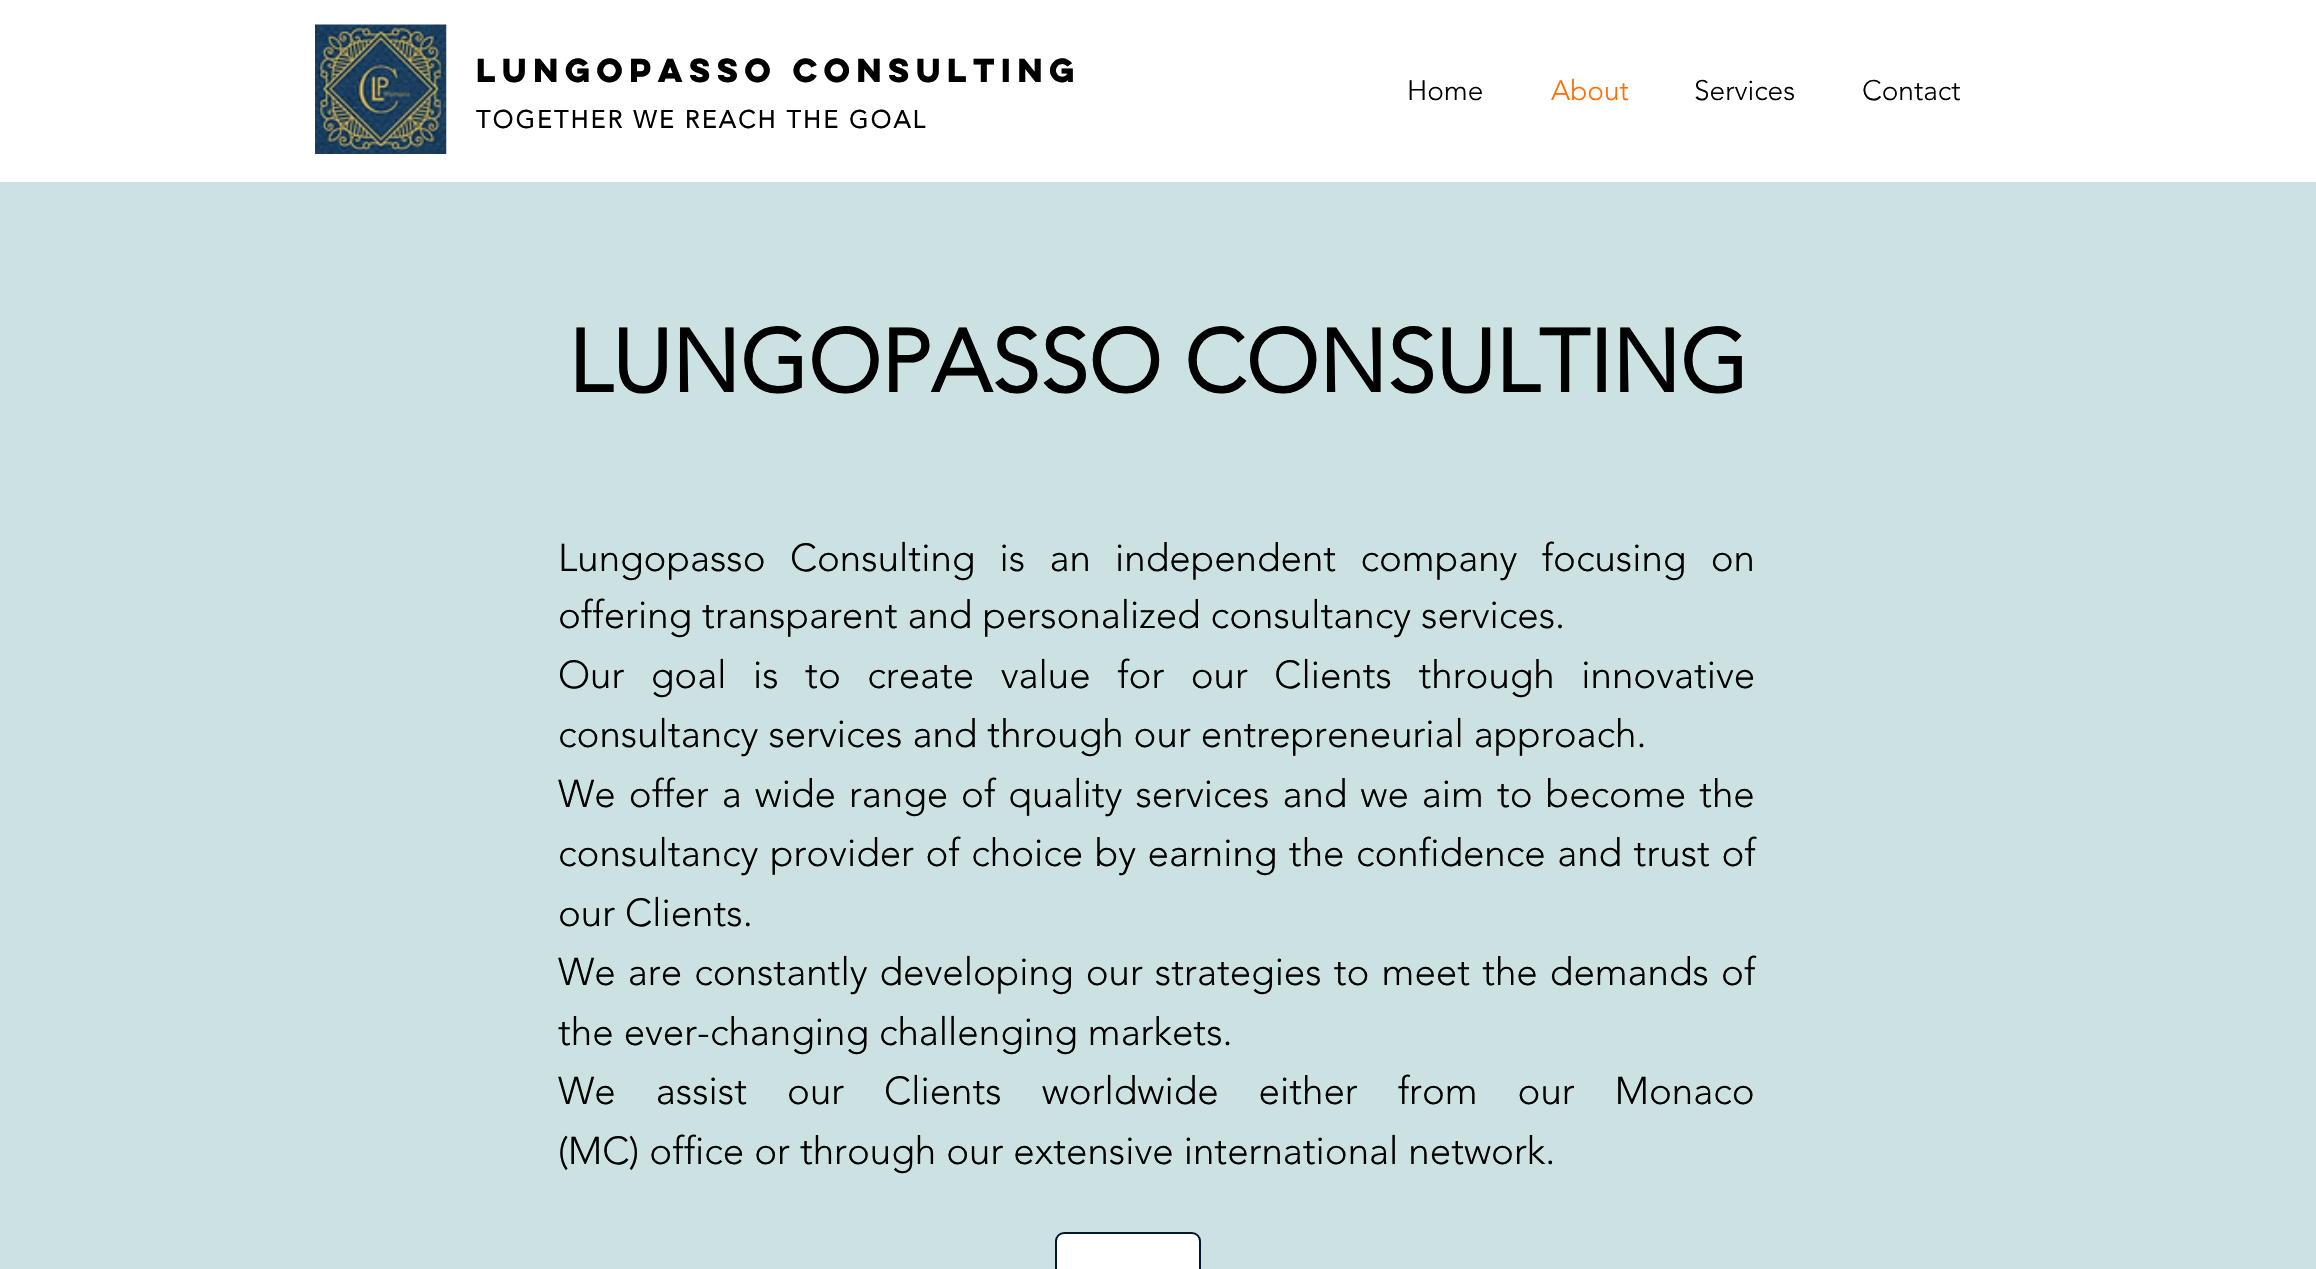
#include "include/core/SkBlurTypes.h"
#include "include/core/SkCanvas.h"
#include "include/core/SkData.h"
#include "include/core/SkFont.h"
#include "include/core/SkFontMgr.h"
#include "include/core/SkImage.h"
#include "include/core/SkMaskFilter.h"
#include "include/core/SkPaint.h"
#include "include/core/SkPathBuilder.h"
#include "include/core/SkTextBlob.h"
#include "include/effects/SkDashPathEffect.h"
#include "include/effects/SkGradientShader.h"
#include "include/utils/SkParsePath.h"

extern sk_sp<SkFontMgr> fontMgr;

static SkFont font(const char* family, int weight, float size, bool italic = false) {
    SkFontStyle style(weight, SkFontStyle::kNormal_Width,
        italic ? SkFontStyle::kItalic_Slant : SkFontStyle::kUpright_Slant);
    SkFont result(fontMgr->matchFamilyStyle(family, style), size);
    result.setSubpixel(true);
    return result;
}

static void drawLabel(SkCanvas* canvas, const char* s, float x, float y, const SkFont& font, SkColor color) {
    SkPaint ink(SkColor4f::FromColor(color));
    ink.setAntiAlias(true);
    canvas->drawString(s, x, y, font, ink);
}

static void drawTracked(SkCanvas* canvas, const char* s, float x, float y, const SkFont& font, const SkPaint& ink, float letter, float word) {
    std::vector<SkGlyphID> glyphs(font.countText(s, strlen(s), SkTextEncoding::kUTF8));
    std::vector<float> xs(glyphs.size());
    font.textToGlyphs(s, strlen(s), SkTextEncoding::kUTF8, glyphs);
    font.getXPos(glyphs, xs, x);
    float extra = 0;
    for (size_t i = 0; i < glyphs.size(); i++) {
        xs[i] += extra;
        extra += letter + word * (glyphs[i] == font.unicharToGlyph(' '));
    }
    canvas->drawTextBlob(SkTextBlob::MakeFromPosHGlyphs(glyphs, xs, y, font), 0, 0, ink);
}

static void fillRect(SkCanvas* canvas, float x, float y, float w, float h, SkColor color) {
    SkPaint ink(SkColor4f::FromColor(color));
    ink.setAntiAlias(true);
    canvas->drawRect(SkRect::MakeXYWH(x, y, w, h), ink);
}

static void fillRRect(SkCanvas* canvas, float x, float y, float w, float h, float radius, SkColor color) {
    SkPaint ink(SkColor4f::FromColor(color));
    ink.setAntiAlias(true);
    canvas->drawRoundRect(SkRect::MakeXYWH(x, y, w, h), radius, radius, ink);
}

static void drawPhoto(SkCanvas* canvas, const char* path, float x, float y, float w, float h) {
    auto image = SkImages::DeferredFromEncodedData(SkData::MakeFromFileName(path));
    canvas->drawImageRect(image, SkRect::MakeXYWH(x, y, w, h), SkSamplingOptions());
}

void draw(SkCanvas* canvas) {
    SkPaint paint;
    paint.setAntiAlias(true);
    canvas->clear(0xFFCCE2E2);
    fillRect(canvas, 0, 0, 2316, 182, 0xFFFFFFFF);
    drawPhoto(canvas, "assets/img1.png", 315, 24, 132, 130);
    SkFont font1 = font("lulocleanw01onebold", 700, 29.75f);
    drawLabel(canvas, "LUNGOPASSO CONSULTING", 476, 82, font1, 0xFF000000);
    SkFont font2 = font("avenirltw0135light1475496", 300, 28);
    drawLabel(canvas, "Home", 1407, 100, font2, 0xFF000000);
    drawLabel(canvas, "About", 1551, 100, font2, 0xFFFF6D05);
    drawLabel(canvas, "Services", 1694, 100, font2, 0xFF000000);
    drawLabel(canvas, "Contact", 1862, 100, font2, 0xFF000000);
    SkFont font3 = font("avenirltw0135light1475496", 700, 24.5f);
    paint.setColor(0xFF000000);
    drawTracked(canvas, "TOGETHER WE REACH THE GOAL", 476, 128, font3, paint, 2.45f, 0);
    SkFont font4 = font("avenirltw0135light1475496", 700, 87.5f);
    drawLabel(canvas, "LUNGOPASSO CONSULTING", 568, 392, font4, 0xFF000000);
    SkFont font5 = font("avenirltw0135light1475496", 300, 38.5f);
    drawTracked(canvas, "Lungopasso Consulting is an independent company focusing on", 558, 571, font5, paint, 0, 14.25f);
    drawLabel(canvas, "offering transparent and personalized consultancy services.", 558, 628, font5, 0xFF000000);
    drawTracked(canvas, "Our goal is to create value for our Clients through innovative", 558, 688, font5, paint, 0, 16.5f);
    drawLabel(canvas, "consultancy services and through our entrepreneurial approach.", 558, 747, font5, 0xFF000000);
    drawTracked(canvas, "We offer a wide range of quality services and we aim to become the", 558, 807, font5, paint, 0, 3);
    drawTracked(canvas, "consultancy provider of choice by earning the confidence and trust of", 558, 866, font5, paint, 0, 1.5f);
    drawLabel(canvas, "our Clients.", 558, 926, font5, 0xFF000000);
    drawTracked(canvas, "We are constantly developing our strategies to meet the demands of", 558, 985, font5, paint, 0, 2.1f);
    drawLabel(canvas, "the ever-changing challenging markets.", 558, 1045, font5, 0xFF000000);
    drawTracked(canvas, "We assist our Clients worldwide either from our Monaco", 558, 1104, font5, paint, 0, 30);
    drawLabel(canvas, "(MC) office or through our extensive international network.", 558, 1164, font5, 0xFF000000);
    fillRRect(canvas, 1055, 1232, 146, 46, 9, 0xFFFFFFFF);
    drawPhoto(canvas, "assets/img2.png", 1056, 1234, 2, 3);
    paint.setStroke(true);
    paint.setStrokeWidth(2);
    paint.setColor(0xFF01172E);
    canvas->drawRoundRect(SkRect::MakeXYWH(1056, 1233, 144, 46), 8, 8, paint);
}
